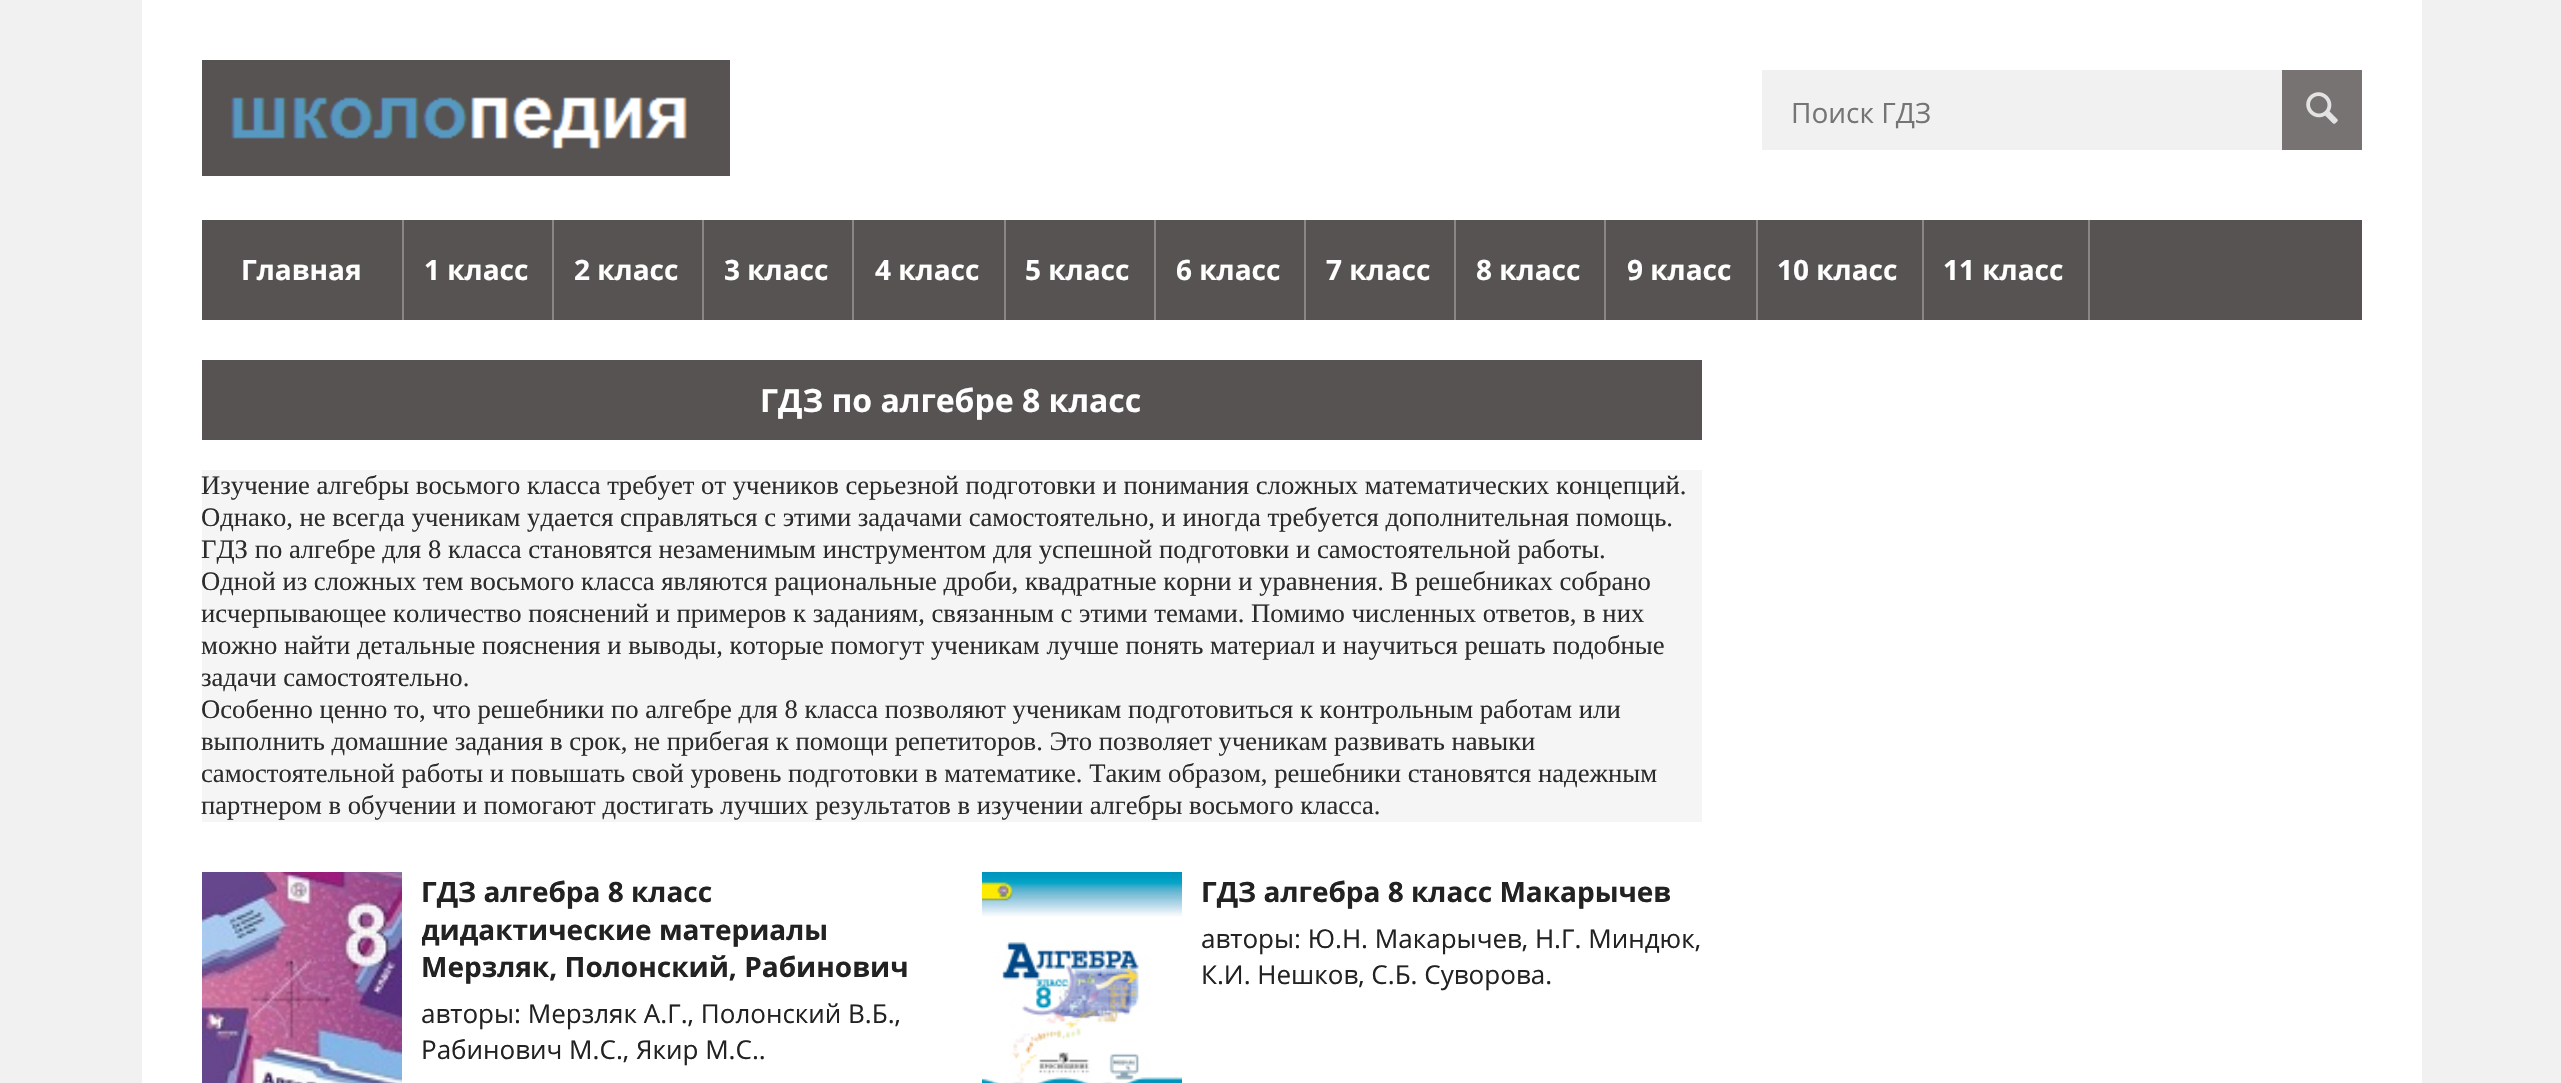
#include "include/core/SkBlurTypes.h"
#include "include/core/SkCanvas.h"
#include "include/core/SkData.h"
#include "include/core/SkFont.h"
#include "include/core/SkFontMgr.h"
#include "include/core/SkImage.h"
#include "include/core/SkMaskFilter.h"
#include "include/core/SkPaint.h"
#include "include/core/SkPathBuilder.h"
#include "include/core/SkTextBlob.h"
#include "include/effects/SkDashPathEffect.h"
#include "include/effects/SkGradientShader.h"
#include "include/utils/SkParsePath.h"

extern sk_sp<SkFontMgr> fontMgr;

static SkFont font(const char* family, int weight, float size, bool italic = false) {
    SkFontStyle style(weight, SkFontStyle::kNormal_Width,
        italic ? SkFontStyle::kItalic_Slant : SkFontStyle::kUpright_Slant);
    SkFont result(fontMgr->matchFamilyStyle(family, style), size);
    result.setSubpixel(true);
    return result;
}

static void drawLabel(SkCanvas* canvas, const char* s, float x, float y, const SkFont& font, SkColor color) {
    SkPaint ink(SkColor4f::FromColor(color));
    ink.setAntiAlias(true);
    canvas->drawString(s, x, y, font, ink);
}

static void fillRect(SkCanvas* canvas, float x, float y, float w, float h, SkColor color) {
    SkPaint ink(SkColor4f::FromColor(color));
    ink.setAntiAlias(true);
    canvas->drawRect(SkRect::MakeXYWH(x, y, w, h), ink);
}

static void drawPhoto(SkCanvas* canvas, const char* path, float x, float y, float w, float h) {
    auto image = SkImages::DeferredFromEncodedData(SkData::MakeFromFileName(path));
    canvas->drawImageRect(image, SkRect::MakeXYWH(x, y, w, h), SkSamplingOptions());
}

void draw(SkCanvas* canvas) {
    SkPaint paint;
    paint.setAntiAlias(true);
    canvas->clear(0xFFF1F1F1);
    fillRect(canvas, 142, 0, 2280, 1083, 0xFFFFFFFF);
    drawPhoto(canvas, "assets/img1.png", 202, 60, 528, 116);
    fillRect(canvas, 1762, 70, 520, 80, 0xFFF1F1F1);
    SkFont font1 = font("Open Sans", 400, 28);
    drawLabel(canvas, "Поиск ГДЗ", 1791, 123, font1, 0xFF757575);
    fillRect(canvas, 2282, 70, 80, 80, 0xFF767372);
    drawPhoto(canvas, "assets/img2.png", 2306, 92, 32, 32);
    fillRect(canvas, 202, 220, 2160, 100, 0xFF575352);
    fillRect(canvas, 402, 220, 2, 100, 0xFF898786);
    SkFont font2 = font("Open Sans", 700, 28);
    drawLabel(canvas, "Главная", 241, 280, font2, 0xFFFFFFFF);
    fillRect(canvas, 552, 220, 2, 100, 0xFF898786);
    drawLabel(canvas, "1 класс", 424, 280, font2, 0xFFFFFFFF);
    fillRect(canvas, 702, 220, 2, 100, 0xFF898786);
    drawLabel(canvas, "2 класс", 574, 280, font2, 0xFFFFFFFF);
    fillRect(canvas, 852, 220, 2, 100, 0xFF898786);
    drawLabel(canvas, "3 класс", 724, 280, font2, 0xFFFFFFFF);
    fillRect(canvas, 1004, 220, 2, 100, 0xFF898786);
    drawLabel(canvas, "4 класс", 875, 280, font2, 0xFFFFFFFF);
    fillRect(canvas, 1154, 220, 2, 100, 0xFF898786);
    drawLabel(canvas, "5 класс", 1025, 280, font2, 0xFFFFFFFF);
    fillRect(canvas, 1304, 220, 2, 100, 0xFF898786);
    drawLabel(canvas, "6 класс", 1176, 280, font2, 0xFFFFFFFF);
    fillRect(canvas, 1454, 220, 2, 100, 0xFF898786);
    drawLabel(canvas, "7 класс", 1326, 280, font2, 0xFFFFFFFF);
    fillRect(canvas, 1604, 220, 2, 100, 0xFF898786);
    drawLabel(canvas, "8 класс", 1476, 280, font2, 0xFFFFFFFF);
    fillRect(canvas, 1756, 220, 2, 100, 0xFF898786);
    drawLabel(canvas, "9 класс", 1627, 280, font2, 0xFFFFFFFF);
    fillRect(canvas, 1922, 220, 2, 100, 0xFF898786);
    drawLabel(canvas, "10 класс", 1777, 280, font2, 0xFFFFFFFF);
    fillRect(canvas, 2088, 220, 2, 100, 0xFF898786);
    drawLabel(canvas, "11 класс", 1943, 280, font2, 0xFFFFFFFF);
    fillRect(canvas, 202, 360, 1500, 80, 0xFF575352);
    SkFont font3 = font("Open Sans", 700, 32);
    drawLabel(canvas, "ГДЗ по алгебре 8 класс", 760, 412, font3, 0xFFFFFFFF);
    fillRect(canvas, 202, 470, 1500, 352, 0xFFF5F5F5);
    SkFont font4 = font("Liberation Serif", 400, 26.67f);
    drawLabel(canvas, "Изучение алгебры восьмого класса требует от учеников серьезной подготовки и понимания сложных математических концепций.", 201, 494, font4, 0xFF2C2C2C);
    drawLabel(canvas, "Однако, не всегда ученикам удается справляться с этими задачами самостоятельно, и иногда требуется дополнительная помощь.", 201, 526, font4, 0xFF2C2C2C);
    drawLabel(canvas, "ГДЗ по алгебре для 8 класса становятся незаменимым инструментом для успешной подготовки и самостоятельной работы.", 201, 558, font4, 0xFF2C2C2C);
    drawLabel(canvas, "Одной из сложных тем восьмого класса являются рациональные дроби, квадратные корни и уравнения. В решебниках собрано", 201, 590, font4, 0xFF2C2C2C);
    drawLabel(canvas, "исчерпывающее количество пояснений и примеров к заданиям, связанным с этими темами. Помимо численных ответов, в них", 201, 622, font4, 0xFF2C2C2C);
    drawLabel(canvas, "можно найти детальные пояснения и выводы, которые помогут ученикам лучше понять материал и научиться решать подобные", 201, 654, font4, 0xFF2C2C2C);
    drawLabel(canvas, "задачи самостоятельно.", 201, 686, font4, 0xFF2C2C2C);
    drawLabel(canvas, "Особенно ценно то, что решебники по алгебре для 8 класса позволяют ученикам подготовиться к контрольным работам или", 201, 718, font4, 0xFF2C2C2C);
    drawLabel(canvas, "выполнить домашние задания в срок, не прибегая к помощи репетиторов. Это позволяет ученикам развивать навыки", 201, 750, font4, 0xFF2C2C2C);
    drawLabel(canvas, "самостоятельной работы и повышать свой уровень подготовки в математике. Таким образом, решебники становятся надежным", 201, 782, font4, 0xFF2C2C2C);
    drawLabel(canvas, "партнером в обучении и помогают достигать лучших результатов в изучении алгебры восьмого класса.", 201, 814, font4, 0xFF2C2C2C);
    drawPhoto(canvas, "assets/img3.png", 202, 872, 200, 211);
    drawLabel(canvas, "ГДЗ алгебра 8 класс", 421, 902, font2, 0xFF222222);
    canvas->save();
    canvas->clipRect(SkRect::MakeXYWH(422, 872, 500, 112));
    drawLabel(canvas, "дидактические материалы", 421, 940, font2, 0xFF222222);
    canvas->restore();
    drawLabel(canvas, "Мерзляк, Полонский, Рабинович", 421, 977, font2, 0xFF222222);
    SkFont font5 = font("Open Sans", 400, 26);
    drawLabel(canvas, "авторы: Мерзляк А.Г., Полонский В.Б.,", 421, 1023, font5, 0xFF222222);
    drawLabel(canvas, "Рабинович М.С., Якир М.С..", 421, 1059, font5, 0xFF222222);
    drawPhoto(canvas, "assets/img4.png", 982, 872, 200, 211);
    drawLabel(canvas, "ГДЗ алгебра 8 класс Макарычев", 1201, 902, font2, 0xFF222222);
    drawLabel(canvas, "авторы: Ю.Н. Макарычев, Н.Г. Миндюк,", 1201, 948, font5, 0xFF222222);
    drawLabel(canvas, "К.И. Нешков, С.Б. Суворова.", 1201, 984, font5, 0xFF222222);
}
